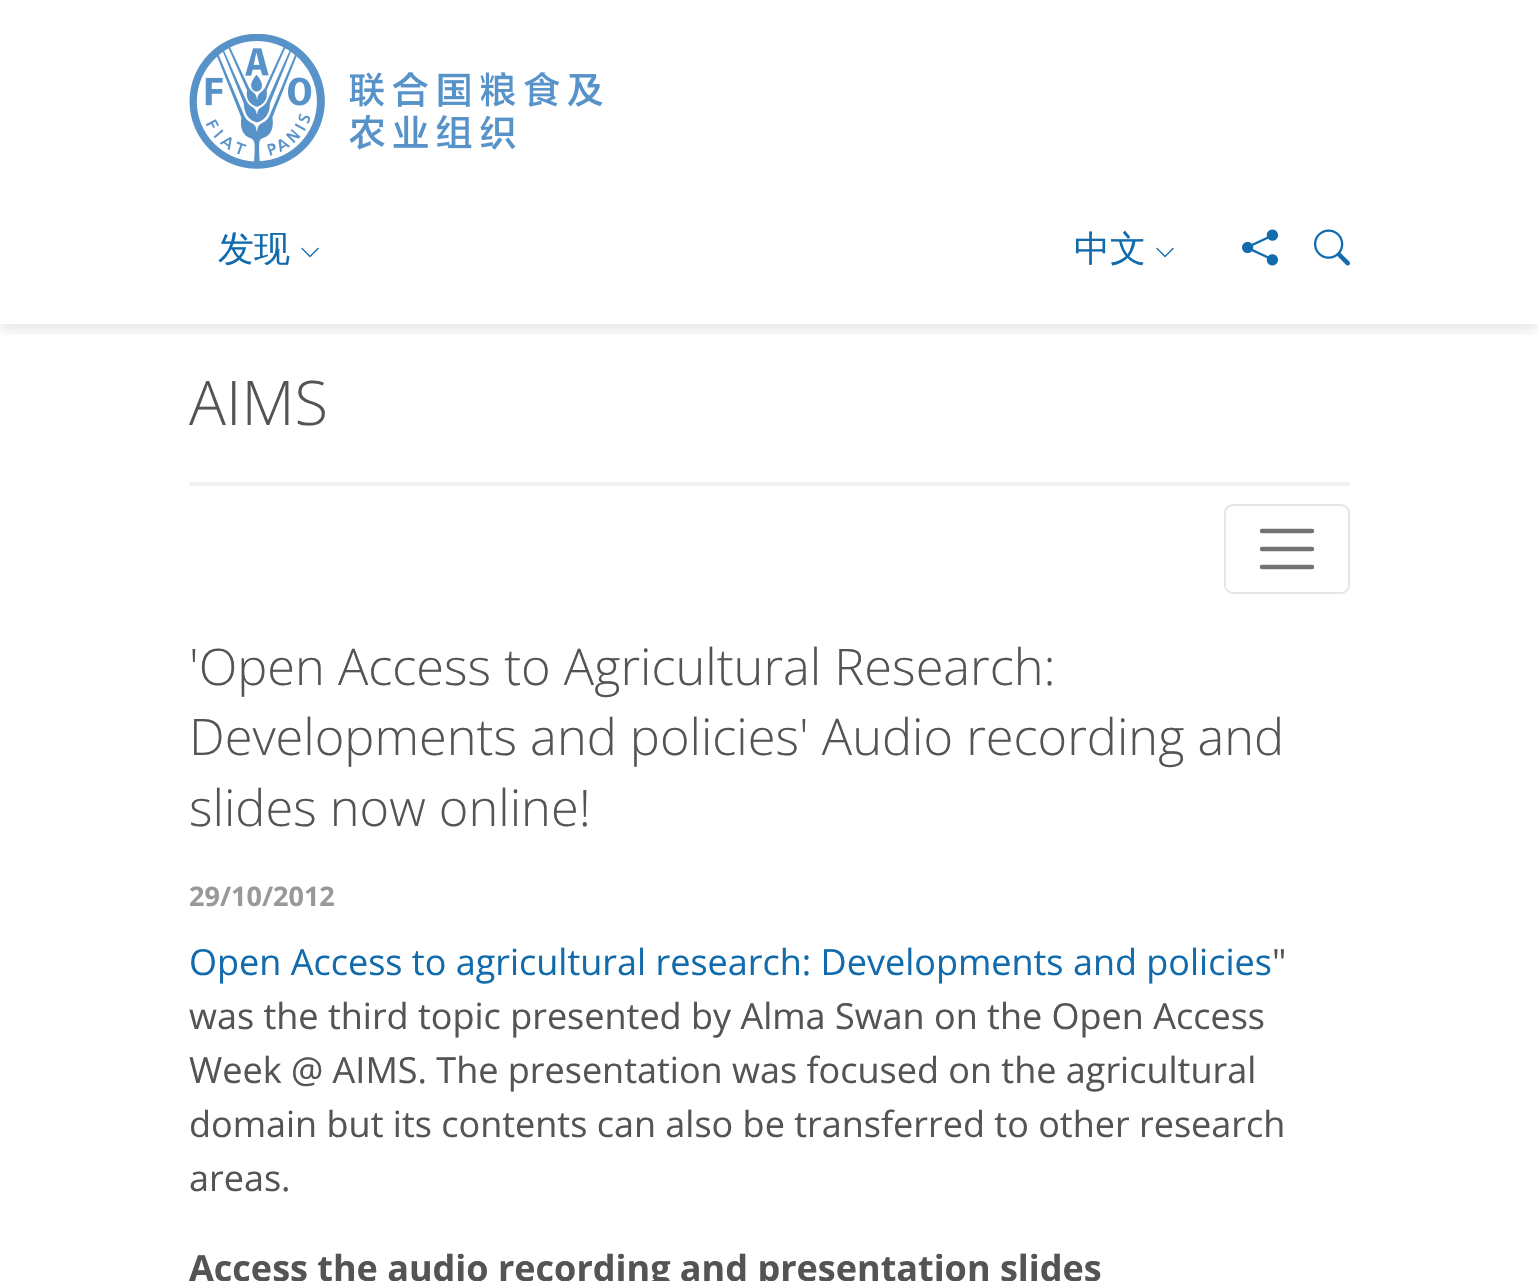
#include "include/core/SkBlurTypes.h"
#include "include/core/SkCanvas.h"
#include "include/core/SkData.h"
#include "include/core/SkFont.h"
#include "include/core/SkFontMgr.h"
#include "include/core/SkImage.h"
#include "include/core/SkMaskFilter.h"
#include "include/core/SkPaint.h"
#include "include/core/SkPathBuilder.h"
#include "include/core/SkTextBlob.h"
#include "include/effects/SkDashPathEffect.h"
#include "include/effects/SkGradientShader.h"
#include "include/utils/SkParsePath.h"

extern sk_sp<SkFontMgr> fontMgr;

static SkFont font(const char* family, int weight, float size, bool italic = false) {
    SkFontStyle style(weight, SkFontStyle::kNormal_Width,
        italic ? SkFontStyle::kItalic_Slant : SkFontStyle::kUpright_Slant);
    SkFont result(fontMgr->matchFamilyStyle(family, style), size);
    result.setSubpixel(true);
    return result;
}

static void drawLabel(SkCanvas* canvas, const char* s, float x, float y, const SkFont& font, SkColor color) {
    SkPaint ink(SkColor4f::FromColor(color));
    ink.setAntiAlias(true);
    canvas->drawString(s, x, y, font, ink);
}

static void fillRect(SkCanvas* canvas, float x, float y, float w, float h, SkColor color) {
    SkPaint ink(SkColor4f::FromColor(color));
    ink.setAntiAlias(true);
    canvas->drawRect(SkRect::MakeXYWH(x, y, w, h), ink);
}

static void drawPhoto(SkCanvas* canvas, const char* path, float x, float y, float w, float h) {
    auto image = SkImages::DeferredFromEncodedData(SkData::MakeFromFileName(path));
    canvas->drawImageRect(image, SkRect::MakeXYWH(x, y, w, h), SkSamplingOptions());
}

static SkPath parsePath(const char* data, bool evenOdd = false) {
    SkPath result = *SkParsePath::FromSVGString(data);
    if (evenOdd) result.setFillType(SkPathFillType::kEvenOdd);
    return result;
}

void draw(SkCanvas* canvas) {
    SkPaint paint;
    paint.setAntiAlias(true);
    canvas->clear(0xFFFFFFFF);
    canvas->save();
    canvas->clipRect(SkRect::MakeXYWH(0, 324, 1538, 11));
    paint.setColor(0x1A000000);
    paint.setMaskFilter(SkMaskFilter::MakeBlur(kNormal_SkBlurStyle, 7));
    canvas->drawRect(SkRect::MakeXYWH(0, 5, 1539, 324), paint);
    paint.setMaskFilter(nullptr);
    canvas->restore();
    drawPhoto(canvas, "assets/img1.png", 189, 34, 414, 135);
    SkFont font1 = font("WenQuanYi Zen Hei", 500, 36);
    drawLabel(canvas, "发现", 218, 261, font1, 0xFF116BAC);
    drawPhoto(canvas, "assets/img2.png", 301, 247, 18, 11);
    drawLabel(canvas, "中文", 1074, 261, font1, 0xFF116BAC);
    drawPhoto(canvas, "assets/img2.png", 1156, 247, 18, 11);
    drawPhoto(canvas, "assets/img3.png", 1242, 229, 36, 37);
    drawPhoto(canvas, "assets/img4.png", 1314, 229, 36, 37);
    fillRect(canvas, 189, 482, 1161, 4, 0xFFF2F2F2);
    SkFont font2 = font("Open Sans", 300, 61.5f);
    drawLabel(canvas, "AIMS", 189, 425, font2, 0xFF545454);
    paint.setStroke(true);
    paint.setStrokeWidth(2);
    paint.setColor(0xFFE6E6E6);
    canvas->drawRoundRect(SkRect::MakeXYWH(1225, 505, 124, 88), 8, 8, paint);
    paint.setStrokeWidth(4.5f);
    paint.setStrokeCap(SkPaint::kRound_Cap);
    paint.setColor(0xFF737373);
    canvas->drawPath(parsePath("M1262 531H1312M1262 549H1312M1262 567H1312"), paint);
    SkFont font3 = font("Open Sans", 300, 50.5f);
    drawLabel(canvas, "'Open Access to Agricultural Research:", 189, 685, font3, 0xFF545454);
    drawLabel(canvas, "Developments and policies' Audio recording and", 189, 755, font3, 0xFF545454);
    drawLabel(canvas, "slides now online!", 189, 826, font3, 0xFF545454);
    SkFont font4 = font("Open Sans", 700, 27);
    drawLabel(canvas, "29/10/2012", 189, 906, font4, 0xFF999999);
    SkFont font5 = font("Open Sans", 400, 36);
    drawLabel(canvas, "Open Access to agricultural research: Developments and policies", 189, 975, font5, 0xFF116BAC);
    drawLabel(canvas, "\"", 1272, 975, font5, 0xFF545454);
    drawLabel(canvas, "was the third topic presented by Alma Swan on the Open Access", 189, 1029, font5, 0xFF545454);
    drawLabel(canvas, "Week @ AIMS. The presentation was focused on the agricultural", 189, 1083, font5, 0xFF545454);
    drawLabel(canvas, "domain but its contents can also be transferred to other research", 189, 1137, font5, 0xFF545454);
    drawLabel(canvas, "areas.", 189, 1191, font5, 0xFF545454);
    SkFont font6 = font("Open Sans", 700, 36);
    drawLabel(canvas, "Access the audio recording and presentation slides", 189, 1281, font6, 0xFF545454);
}
